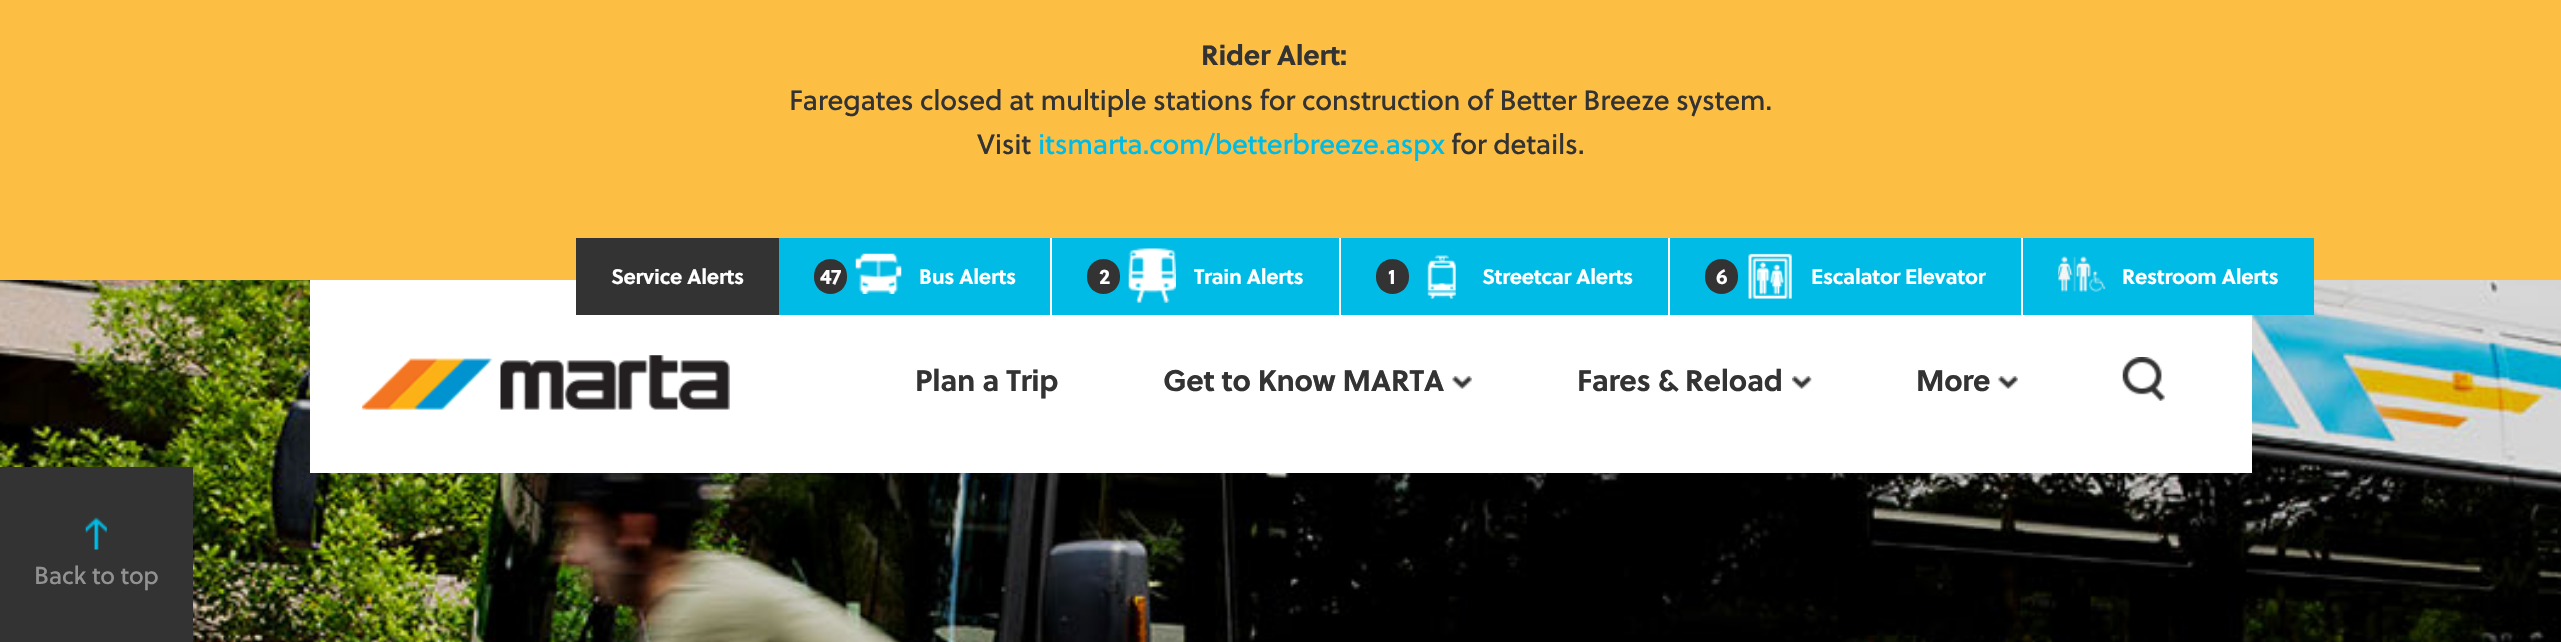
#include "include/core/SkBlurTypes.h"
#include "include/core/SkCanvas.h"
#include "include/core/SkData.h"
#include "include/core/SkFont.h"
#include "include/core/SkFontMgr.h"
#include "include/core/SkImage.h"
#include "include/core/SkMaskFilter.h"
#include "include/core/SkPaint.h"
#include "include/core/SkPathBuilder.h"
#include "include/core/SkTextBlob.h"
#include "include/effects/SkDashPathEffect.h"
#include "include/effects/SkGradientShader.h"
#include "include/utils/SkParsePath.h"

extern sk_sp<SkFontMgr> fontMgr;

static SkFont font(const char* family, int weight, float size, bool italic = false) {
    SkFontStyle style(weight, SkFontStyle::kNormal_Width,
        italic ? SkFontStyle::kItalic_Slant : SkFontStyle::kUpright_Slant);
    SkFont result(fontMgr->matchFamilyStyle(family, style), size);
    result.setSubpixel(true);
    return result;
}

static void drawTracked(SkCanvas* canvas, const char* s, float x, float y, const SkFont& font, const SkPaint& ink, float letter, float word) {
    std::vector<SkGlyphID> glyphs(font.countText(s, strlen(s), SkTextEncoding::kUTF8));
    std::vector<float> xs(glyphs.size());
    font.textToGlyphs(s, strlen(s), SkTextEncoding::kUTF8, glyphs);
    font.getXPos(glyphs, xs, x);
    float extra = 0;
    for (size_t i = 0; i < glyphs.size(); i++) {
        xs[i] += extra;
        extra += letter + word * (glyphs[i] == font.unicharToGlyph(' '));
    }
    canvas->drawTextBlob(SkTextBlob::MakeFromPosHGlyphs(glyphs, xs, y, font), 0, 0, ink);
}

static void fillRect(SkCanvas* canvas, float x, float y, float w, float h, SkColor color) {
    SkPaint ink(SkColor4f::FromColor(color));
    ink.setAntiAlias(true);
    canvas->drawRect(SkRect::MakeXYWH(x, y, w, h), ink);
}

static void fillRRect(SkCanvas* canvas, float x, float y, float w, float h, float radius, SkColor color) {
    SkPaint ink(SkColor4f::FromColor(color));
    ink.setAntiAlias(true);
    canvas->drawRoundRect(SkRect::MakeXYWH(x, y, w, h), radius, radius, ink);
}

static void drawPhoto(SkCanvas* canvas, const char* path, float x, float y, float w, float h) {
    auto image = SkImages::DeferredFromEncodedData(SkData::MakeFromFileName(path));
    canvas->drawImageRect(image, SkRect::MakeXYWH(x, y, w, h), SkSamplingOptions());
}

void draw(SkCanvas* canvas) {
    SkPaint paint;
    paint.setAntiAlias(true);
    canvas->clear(0xFFFFFFFF);
    fillRect(canvas, 0, 0, 2561, 280, 0xFFFDBF43);
    SkFont font1 = font("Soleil", 700, 28);
    paint.setColor(0xFF333333);
    drawTracked(canvas, "Rider Alert:", 1201, 65, font1, paint, -0.3f, 0);
    SkFont font2 = font("Soleil", 400, 28);
    drawTracked(canvas, "Faregates closed at multiple stations for construction of Better Breeze system.", 789, 110, font2, paint, -0.3f, 0);
    drawTracked(canvas, "Visit", 977, 154, font2, paint, -0.3f, 0);
    paint.setColor(0xFF00BBE5);
    drawTracked(canvas, "itsmarta.com/betterbreeze.aspx", 1038, 154, font2, paint, -0.3f, 0);
    paint.setColor(0xFF333333);
    drawTracked(canvas, "for details.", 1451, 154, font2, paint, -0.3f, 0);
    drawPhoto(canvas, "assets/img10.png", 0, 280, 2561, 362);
    fillRect(canvas, 310, 280, 1942, 193, 0xFFFFFFFF);
    fillRect(canvas, 576, 238, 203, 77, 0xFF333333);
    SkFont font3 = font("Soleil", 700, 21);
    paint.setColor(0xFFFFFFFF);
    drawTracked(canvas, "Service Alerts", 611, 284, font3, paint, -0.3f, 0);
    fillRect(canvas, 1050, 238, 2, 42, 0xFFFFFFFF);
    fillRect(canvas, 779, 238, 271, 77, 0xFF00BBE5);
    fillRRect(canvas, 814, 259, 33, 35, 16.5f, 0xFF333333);
    drawTracked(canvas, "47", 820, 284, font3, paint, -0.3f, 0);
    drawPhoto(canvas, "assets/img1.png", 855, 253, 47, 41);
    drawTracked(canvas, "Bus Alerts", 919, 284, font3, paint, -0.3f, 0);
    fillRect(canvas, 1339, 238, 2, 42, 0xFFFFFFFF);
    fillRect(canvas, 1052, 238, 287, 77, 0xFF00BBE5);
    fillRRect(canvas, 1087, 259, 33, 35, 16.5f, 0xFF333333);
    drawTracked(canvas, "2", 1099, 284, font3, paint, -0.3f, 0);
    drawPhoto(canvas, "assets/img2.png", 1128, 248, 48, 55);
    drawTracked(canvas, "Train Alerts", 1194, 284, font3, paint, -0.3f, 0);
    fillRect(canvas, 1668, 238, 2, 42, 0xFFFFFFFF);
    fillRect(canvas, 1341, 238, 327, 77, 0xFF00BBE5);
    fillRRect(canvas, 1376, 259, 33, 35, 16.5f, 0xFF333333);
    drawTracked(canvas, "1", 1388, 284, font3, paint, -0.3f, 0);
    drawPhoto(canvas, "assets/img3.png", 1427, 255, 29, 44);
    drawTracked(canvas, "Streetcar Alerts", 1482, 284, font3, paint, -0.3f, 0);
    fillRect(canvas, 2021, 238, 2, 42, 0xFFFFFFFF);
    fillRect(canvas, 1670, 238, 351, 77, 0xFF00BBE5);
    fillRRect(canvas, 1705, 259, 33, 35, 16.5f, 0xFF333333);
    drawTracked(canvas, "6", 1716, 284, font3, paint, -0.3f, 0);
    drawPhoto(canvas, "assets/img4.png", 1748, 253, 44, 46);
    drawTracked(canvas, "Escalator Elevator", 1811, 284, font3, paint, -0.3f, 0);
    fillRect(canvas, 2023, 238, 291, 77, 0xFF00BBE5);
    drawPhoto(canvas, "assets/img5.png", 2058, 256, 48, 36);
    drawTracked(canvas, "Restroom Alerts", 2122, 284, font3, paint, -0.3f, 0);
    drawPhoto(canvas, "assets/img6.png", 362, 355, 368, 55);
    SkFont font4 = font("Soleil", 700, 29.75f);
    paint.setColor(0xFF333333);
    drawTracked(canvas, "Plan a Trip", 915, 391, font4, paint, -0.3f, 0);
    drawTracked(canvas, "Get to Know MARTA", 1163, 391, font4, paint, -0.3f, 0);
    drawPhoto(canvas, "assets/img7.png", 1452, 376, 20, 13);
    drawTracked(canvas, "Fares & Reload", 1577, 391, font4, paint, -0.3f, 0);
    drawPhoto(canvas, "assets/img8.png", 1792, 376, 20, 13);
    drawTracked(canvas, "More", 1916, 391, font4, paint, -0.3f, 0);
    drawPhoto(canvas, "assets/img7.png", 1998, 376, 20, 13);
    drawPhoto(canvas, "assets/img9.png", 2122, 357, 43, 44);
    fillRect(canvas, 0, 467, 193, 175, 0xFF333333);
    drawPhoto(canvas, "assets/img11.png", 85, 517, 22, 33);
    SkFont font5 = font("Soleil", 400, 24.5f);
    paint.setColor(0xFF929292);
    drawTracked(canvas, "Back to top", 34, 584, font5, paint, -0.3f, 0);
}
